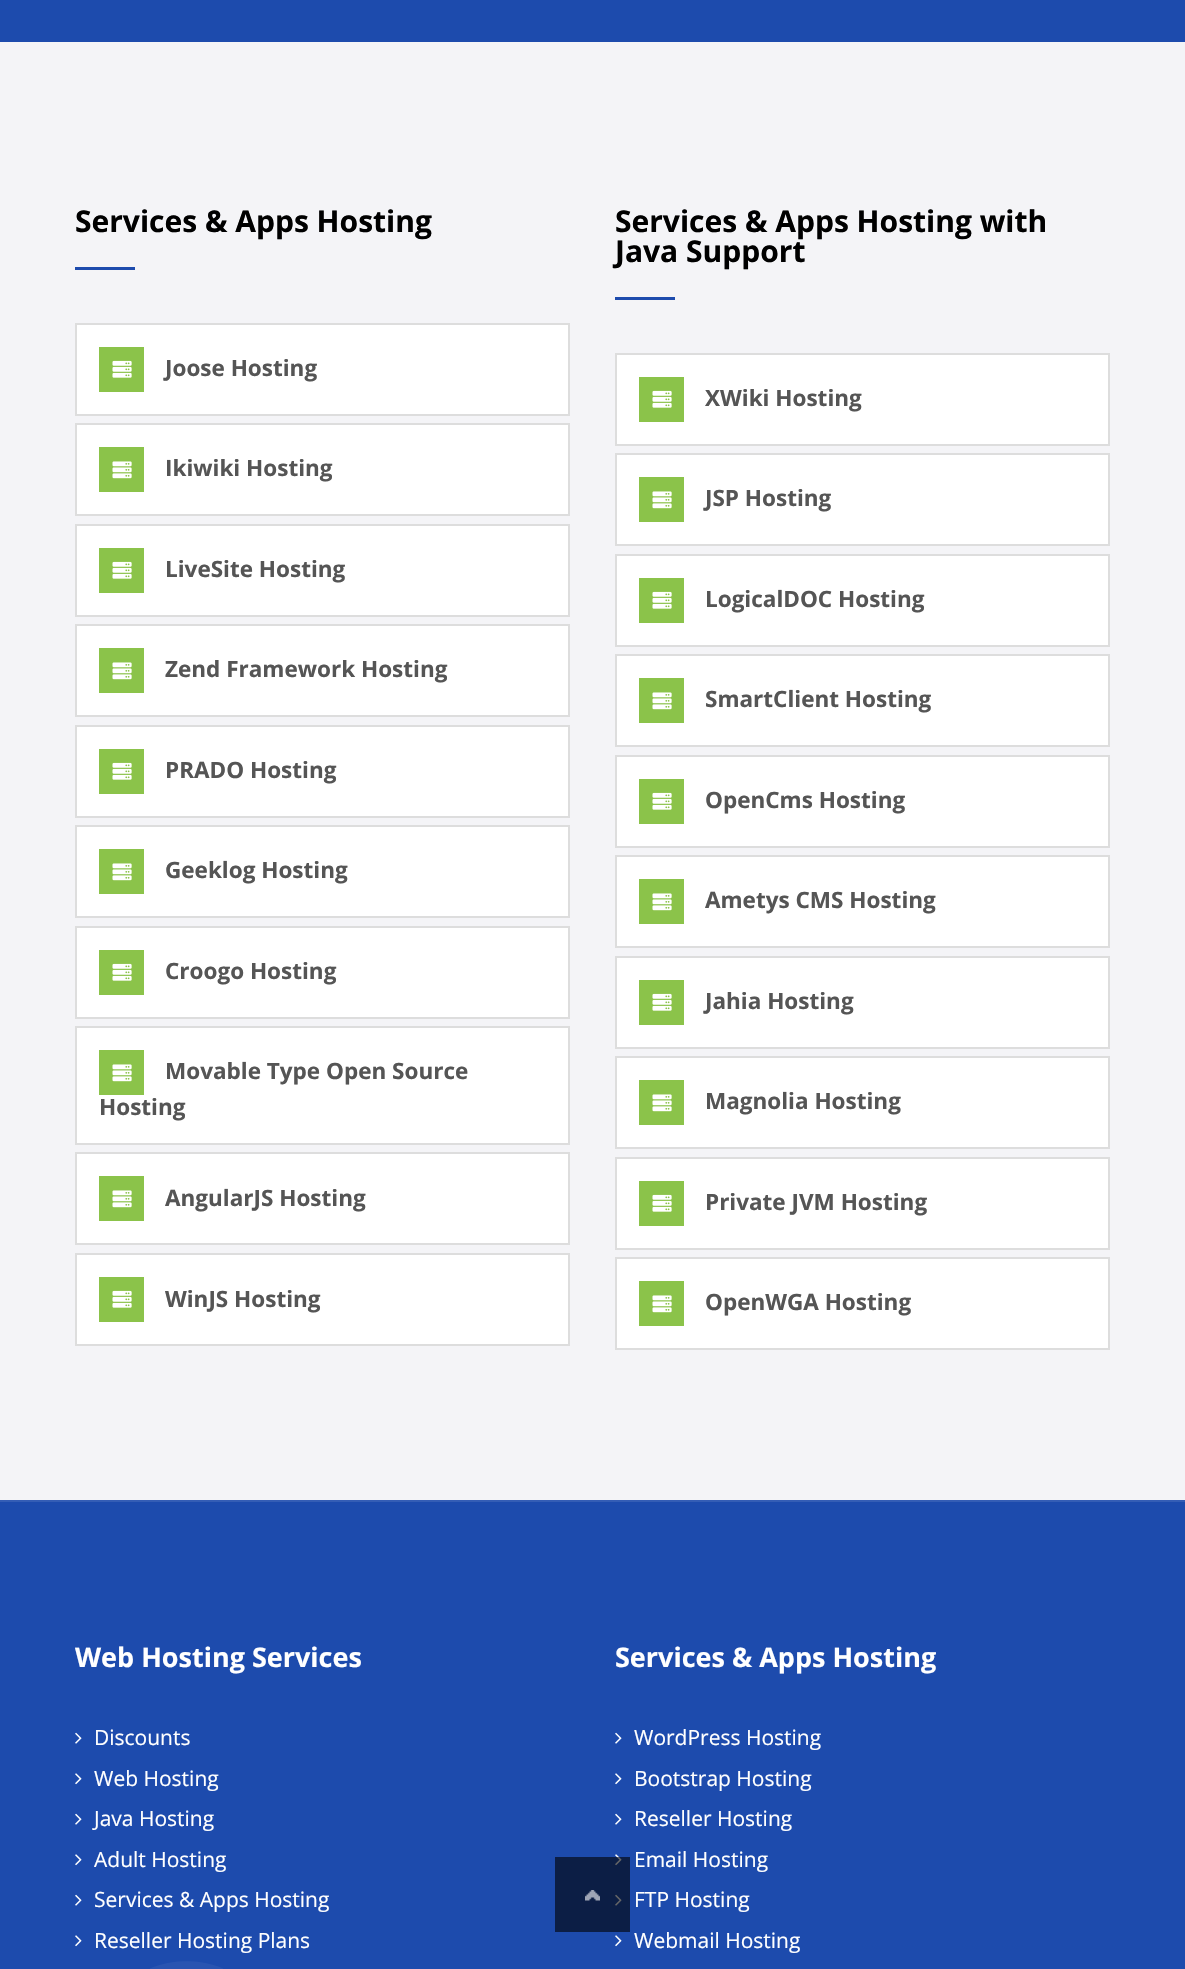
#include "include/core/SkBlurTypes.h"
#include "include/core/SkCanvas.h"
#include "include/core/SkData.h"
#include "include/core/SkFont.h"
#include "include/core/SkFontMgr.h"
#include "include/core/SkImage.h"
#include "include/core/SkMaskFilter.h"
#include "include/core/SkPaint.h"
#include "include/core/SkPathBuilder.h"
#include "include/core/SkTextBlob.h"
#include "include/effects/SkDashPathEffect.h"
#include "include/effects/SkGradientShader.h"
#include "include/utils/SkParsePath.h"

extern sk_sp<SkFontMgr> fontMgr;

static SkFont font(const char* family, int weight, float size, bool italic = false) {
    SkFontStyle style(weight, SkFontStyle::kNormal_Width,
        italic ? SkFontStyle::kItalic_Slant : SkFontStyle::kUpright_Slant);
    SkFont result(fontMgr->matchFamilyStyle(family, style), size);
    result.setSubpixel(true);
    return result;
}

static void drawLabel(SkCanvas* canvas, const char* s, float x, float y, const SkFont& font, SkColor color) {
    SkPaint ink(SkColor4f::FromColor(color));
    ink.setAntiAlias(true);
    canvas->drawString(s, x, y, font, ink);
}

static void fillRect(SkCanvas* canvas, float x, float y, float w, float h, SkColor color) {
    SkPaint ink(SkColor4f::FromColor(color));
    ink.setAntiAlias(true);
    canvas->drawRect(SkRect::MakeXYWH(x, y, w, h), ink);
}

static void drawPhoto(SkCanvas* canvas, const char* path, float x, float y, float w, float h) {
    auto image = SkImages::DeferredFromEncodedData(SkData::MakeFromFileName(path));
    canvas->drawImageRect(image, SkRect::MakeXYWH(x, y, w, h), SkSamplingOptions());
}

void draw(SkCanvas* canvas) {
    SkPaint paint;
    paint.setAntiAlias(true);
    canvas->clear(0xFF1D4BAD);
    fillRect(canvas, 0, 42, 1185, 1458, 0xFFF4F4F7);
    SkFont font1 = font("Open Sans", 700, 30);
    drawLabel(canvas, "Services & Apps Hosting", 75, 232, font1, 0xFF000000);
    fillRect(canvas, 75, 267, 60, 3, 0xFF1D4BAD);
    paint.setColor(0xFFFFFFFF);
    canvas->drawRect(SkRect::MakeXYWH(76, 324, 493, 91), paint);
    paint.setStroke(true);
    paint.setStrokeWidth(2);
    paint.setColor(0xFFDDDDDD);
    canvas->drawRect(SkRect::MakeXYWH(76, 324, 493, 91), paint);
    fillRect(canvas, 99, 347, 45, 45, 0xFF8BC34A);
    drawPhoto(canvas, "assets/img1.png", 112, 360, 20, 18);
    SkFont font2 = font("Open Sans", 700, 22.5f);
    drawLabel(canvas, "Joose Hosting", 165, 376, font2, 0xFF555555);
    paint.setStroke(false);
    paint.setColor(0xFFFFFFFF);
    canvas->drawRect(SkRect::MakeXYWH(76, 424, 493, 91), paint);
    paint.setStroke(true);
    paint.setColor(0xFFDDDDDD);
    canvas->drawRect(SkRect::MakeXYWH(76, 424, 493, 91), paint);
    fillRect(canvas, 99, 447, 45, 45, 0xFF8BC34A);
    drawPhoto(canvas, "assets/img2.png", 112, 461, 20, 18);
    drawLabel(canvas, "Ikiwiki Hosting", 165, 476, font2, 0xFF555555);
    paint.setStroke(false);
    paint.setColor(0xFFFFFFFF);
    canvas->drawRect(SkRect::MakeXYWH(76, 525, 493, 91), paint);
    paint.setStroke(true);
    paint.setColor(0xFFDDDDDD);
    canvas->drawRect(SkRect::MakeXYWH(76, 525, 493, 91), paint);
    fillRect(canvas, 99, 548, 45, 45, 0xFF8BC34A);
    drawPhoto(canvas, "assets/img1.png", 112, 561, 20, 18);
    drawLabel(canvas, "LiveSite Hosting", 165, 577, font2, 0xFF555555);
    paint.setStroke(false);
    paint.setColor(0xFFFFFFFF);
    canvas->drawRect(SkRect::MakeXYWH(76, 625, 493, 91), paint);
    paint.setStroke(true);
    paint.setColor(0xFFDDDDDD);
    canvas->drawRect(SkRect::MakeXYWH(76, 625, 493, 91), paint);
    fillRect(canvas, 99, 648, 45, 45, 0xFF8BC34A);
    drawPhoto(canvas, "assets/img2.png", 112, 662, 20, 18);
    drawLabel(canvas, "Zend Framework Hosting", 165, 677, font2, 0xFF555555);
    paint.setStroke(false);
    paint.setColor(0xFFFFFFFF);
    canvas->drawRect(SkRect::MakeXYWH(76, 726, 493, 91), paint);
    paint.setStroke(true);
    paint.setColor(0xFFDDDDDD);
    canvas->drawRect(SkRect::MakeXYWH(76, 726, 493, 91), paint);
    fillRect(canvas, 99, 749, 45, 45, 0xFF8BC34A);
    drawPhoto(canvas, "assets/img1.png", 112, 762, 20, 18);
    drawLabel(canvas, "PRADO Hosting", 165, 778, font2, 0xFF555555);
    paint.setStroke(false);
    paint.setColor(0xFFFFFFFF);
    canvas->drawRect(SkRect::MakeXYWH(76, 826, 493, 91), paint);
    paint.setStroke(true);
    paint.setColor(0xFFDDDDDD);
    canvas->drawRect(SkRect::MakeXYWH(76, 826, 493, 91), paint);
    fillRect(canvas, 99, 849, 45, 45, 0xFF8BC34A);
    drawPhoto(canvas, "assets/img2.png", 112, 863, 20, 18);
    drawLabel(canvas, "Geeklog Hosting", 165, 878, font2, 0xFF555555);
    paint.setStroke(false);
    paint.setColor(0xFFFFFFFF);
    canvas->drawRect(SkRect::MakeXYWH(76, 927, 493, 91), paint);
    paint.setStroke(true);
    paint.setColor(0xFFDDDDDD);
    canvas->drawRect(SkRect::MakeXYWH(76, 927, 493, 91), paint);
    fillRect(canvas, 99, 950, 45, 45, 0xFF8BC34A);
    drawPhoto(canvas, "assets/img1.png", 112, 963, 20, 18);
    drawLabel(canvas, "Croogo Hosting", 165, 979, font2, 0xFF555555);
    paint.setStroke(false);
    paint.setColor(0xFFFFFFFF);
    canvas->drawRect(SkRect::MakeXYWH(76, 1027, 493, 117), paint);
    paint.setStroke(true);
    paint.setColor(0xFFDDDDDD);
    canvas->drawRect(SkRect::MakeXYWH(76, 1027, 493, 117), paint);
    fillRect(canvas, 99, 1050, 45, 45, 0xFF8BC34A);
    drawPhoto(canvas, "assets/img2.png", 112, 1064, 20, 18);
    drawLabel(canvas, "Movable Type Open Source", 165, 1079, font2, 0xFF555555);
    drawLabel(canvas, "Hosting", 99, 1115, font2, 0xFF555555);
    paint.setStroke(false);
    paint.setColor(0xFFFFFFFF);
    canvas->drawRect(SkRect::MakeXYWH(76, 1153, 493, 91), paint);
    paint.setStroke(true);
    paint.setColor(0xFFDDDDDD);
    canvas->drawRect(SkRect::MakeXYWH(76, 1153, 493, 91), paint);
    fillRect(canvas, 99, 1176, 45, 45, 0xFF8BC34A);
    drawPhoto(canvas, "assets/img2.png", 112, 1190, 20, 18);
    drawLabel(canvas, "AngularJS Hosting", 165, 1206, font2, 0xFF555555);
    paint.setStroke(false);
    paint.setColor(0xFFFFFFFF);
    canvas->drawRect(SkRect::MakeXYWH(76, 1254, 493, 91), paint);
    paint.setStroke(true);
    paint.setColor(0xFFDDDDDD);
    canvas->drawRect(SkRect::MakeXYWH(76, 1254, 493, 91), paint);
    fillRect(canvas, 99, 1277, 45, 45, 0xFF8BC34A);
    drawPhoto(canvas, "assets/img1.png", 112, 1290, 20, 18);
    drawLabel(canvas, "WinJS Hosting", 165, 1307, font2, 0xFF555555);
    drawLabel(canvas, "Services & Apps Hosting with", 615, 232, font1, 0xFF000000);
    drawLabel(canvas, "Java Support", 615, 262, font1, 0xFF000000);
    fillRect(canvas, 615, 297, 60, 3, 0xFF1D4BAD);
    paint.setStroke(false);
    paint.setColor(0xFFFFFFFF);
    canvas->drawRect(SkRect::MakeXYWH(616, 354, 493, 91), paint);
    paint.setStroke(true);
    paint.setColor(0xFFDDDDDD);
    canvas->drawRect(SkRect::MakeXYWH(616, 354, 493, 91), paint);
    fillRect(canvas, 639, 377, 45, 45, 0xFF8BC34A);
    drawPhoto(canvas, "assets/img1.png", 652, 390, 20, 18);
    drawLabel(canvas, "XWiki Hosting", 705, 406, font2, 0xFF555555);
    paint.setStroke(false);
    paint.setColor(0xFFFFFFFF);
    canvas->drawRect(SkRect::MakeXYWH(616, 454, 493, 91), paint);
    paint.setStroke(true);
    paint.setColor(0xFFDDDDDD);
    canvas->drawRect(SkRect::MakeXYWH(616, 454, 493, 91), paint);
    fillRect(canvas, 639, 477, 45, 45, 0xFF8BC34A);
    drawPhoto(canvas, "assets/img2.png", 652, 491, 20, 18);
    drawLabel(canvas, "JSP Hosting", 705, 506, font2, 0xFF555555);
    paint.setStroke(false);
    paint.setColor(0xFFFFFFFF);
    canvas->drawRect(SkRect::MakeXYWH(616, 555, 493, 91), paint);
    paint.setStroke(true);
    paint.setColor(0xFFDDDDDD);
    canvas->drawRect(SkRect::MakeXYWH(616, 555, 493, 91), paint);
    fillRect(canvas, 639, 578, 45, 45, 0xFF8BC34A);
    drawPhoto(canvas, "assets/img1.png", 652, 591, 20, 18);
    drawLabel(canvas, "LogicalDOC Hosting", 705, 607, font2, 0xFF555555);
    paint.setStroke(false);
    paint.setColor(0xFFFFFFFF);
    canvas->drawRect(SkRect::MakeXYWH(616, 655, 493, 91), paint);
    paint.setStroke(true);
    paint.setColor(0xFFDDDDDD);
    canvas->drawRect(SkRect::MakeXYWH(616, 655, 493, 91), paint);
    fillRect(canvas, 639, 678, 45, 45, 0xFF8BC34A);
    drawPhoto(canvas, "assets/img2.png", 652, 692, 20, 18);
    drawLabel(canvas, "SmartClient Hosting", 705, 707, font2, 0xFF555555);
    paint.setStroke(false);
    paint.setColor(0xFFFFFFFF);
    canvas->drawRect(SkRect::MakeXYWH(616, 756, 493, 91), paint);
    paint.setStroke(true);
    paint.setColor(0xFFDDDDDD);
    canvas->drawRect(SkRect::MakeXYWH(616, 756, 493, 91), paint);
    fillRect(canvas, 639, 779, 45, 45, 0xFF8BC34A);
    drawPhoto(canvas, "assets/img1.png", 652, 792, 20, 18);
    drawLabel(canvas, "OpenCms Hosting", 705, 808, font2, 0xFF555555);
    paint.setStroke(false);
    paint.setColor(0xFFFFFFFF);
    canvas->drawRect(SkRect::MakeXYWH(616, 856, 493, 91), paint);
    paint.setStroke(true);
    paint.setColor(0xFFDDDDDD);
    canvas->drawRect(SkRect::MakeXYWH(616, 856, 493, 91), paint);
    fillRect(canvas, 639, 879, 45, 45, 0xFF8BC34A);
    drawPhoto(canvas, "assets/img2.png", 652, 893, 20, 18);
    drawLabel(canvas, "Ametys CMS Hosting", 705, 908, font2, 0xFF555555);
    paint.setStroke(false);
    paint.setColor(0xFFFFFFFF);
    canvas->drawRect(SkRect::MakeXYWH(616, 957, 493, 91), paint);
    paint.setStroke(true);
    paint.setColor(0xFFDDDDDD);
    canvas->drawRect(SkRect::MakeXYWH(616, 957, 493, 91), paint);
    fillRect(canvas, 639, 980, 45, 45, 0xFF8BC34A);
    drawPhoto(canvas, "assets/img1.png", 652, 993, 20, 18);
    drawLabel(canvas, "Jahia Hosting", 705, 1009, font2, 0xFF555555);
    paint.setStroke(false);
    paint.setColor(0xFFFFFFFF);
    canvas->drawRect(SkRect::MakeXYWH(616, 1057, 493, 91), paint);
    paint.setStroke(true);
    paint.setColor(0xFFDDDDDD);
    canvas->drawRect(SkRect::MakeXYWH(616, 1057, 493, 91), paint);
    fillRect(canvas, 639, 1080, 45, 45, 0xFF8BC34A);
    drawPhoto(canvas, "assets/img2.png", 652, 1094, 20, 18);
    drawLabel(canvas, "Magnolia Hosting", 705, 1109, font2, 0xFF555555);
    paint.setStroke(false);
    paint.setColor(0xFFFFFFFF);
    canvas->drawRect(SkRect::MakeXYWH(616, 1158, 493, 91), paint);
    paint.setStroke(true);
    paint.setColor(0xFFDDDDDD);
    canvas->drawRect(SkRect::MakeXYWH(616, 1158, 493, 91), paint);
    fillRect(canvas, 639, 1181, 45, 45, 0xFF8BC34A);
    drawPhoto(canvas, "assets/img1.png", 652, 1194, 20, 18);
    drawLabel(canvas, "Private JVM Hosting", 705, 1210, font2, 0xFF555555);
    paint.setStroke(false);
    paint.setColor(0xFFFFFFFF);
    canvas->drawRect(SkRect::MakeXYWH(616, 1258, 493, 91), paint);
    paint.setStroke(true);
    paint.setColor(0xFFDDDDDD);
    canvas->drawRect(SkRect::MakeXYWH(616, 1258, 493, 91), paint);
    fillRect(canvas, 639, 1281, 45, 45, 0xFF8BC34A);
    drawPhoto(canvas, "assets/img2.png", 652, 1295, 20, 18);
    drawLabel(canvas, "OpenWGA Hosting", 705, 1310, font2, 0xFF555555);
    drawPhoto(canvas, "assets/img3.png", 150, 1961, 73, 8);
    fillRect(canvas, 0, 1500, 1185, 2, 0xFF345DB5);
    SkFont font3 = font("Open Sans", 700, 27);
    drawLabel(canvas, "Web Hosting Services", 75, 1667, font3, 0xFFFFFFFF);
    drawPhoto(canvas, "assets/img4.png", 75, 1732, 7, 12);
    SkFont font4 = font("Open Sans", 400, 21);
    drawLabel(canvas, "Discounts", 94, 1745, font4, 0xFFFFFFFF);
    drawPhoto(canvas, "assets/img5.png", 75, 1773, 7, 12);
    drawLabel(canvas, "Web Hosting", 94, 1786, font4, 0xFFFFFFFF);
    drawPhoto(canvas, "assets/img4.png", 75, 1813, 7, 12);
    drawLabel(canvas, "Java Hosting", 94, 1826, font4, 0xFFFFFFFF);
    drawPhoto(canvas, "assets/img5.png", 75, 1854, 7, 12);
    drawLabel(canvas, "Adult Hosting", 94, 1867, font4, 0xFFFFFFFF);
    drawPhoto(canvas, "assets/img4.png", 75, 1894, 7, 12);
    drawLabel(canvas, "Services & Apps Hosting", 94, 1907, font4, 0xFFFFFFFF);
    drawPhoto(canvas, "assets/img5.png", 75, 1935, 7, 12);
    drawLabel(canvas, "Reseller Hosting Plans", 94, 1948, font4, 0xFFFFFFFF);
    drawLabel(canvas, "Services & Apps Hosting", 615, 1667, font3, 0xFFFFFFFF);
    drawPhoto(canvas, "assets/img4.png", 615, 1732, 7, 12);
    drawLabel(canvas, "WordPress Hosting", 634, 1745, font4, 0xFFFFFFFF);
    drawPhoto(canvas, "assets/img5.png", 615, 1773, 7, 12);
    drawLabel(canvas, "Bootstrap Hosting", 634, 1786, font4, 0xFFFFFFFF);
    drawPhoto(canvas, "assets/img4.png", 615, 1813, 7, 12);
    drawLabel(canvas, "Reseller Hosting", 634, 1826, font4, 0xFFFFFFFF);
    drawPhoto(canvas, "assets/img5.png", 615, 1854, 7, 12);
    drawLabel(canvas, "Email Hosting", 634, 1867, font4, 0xFFFFFFFF);
    drawPhoto(canvas, "assets/img4.png", 615, 1894, 7, 12);
    drawLabel(canvas, "FTP Hosting", 634, 1907, font4, 0xFFFFFFFF);
    drawPhoto(canvas, "assets/img5.png", 615, 1935, 7, 12);
    drawLabel(canvas, "Webmail Hosting", 634, 1948, font4, 0xFFFFFFFF);
    fillRect(canvas, 555, 1857, 75, 75, 0x99000000);
    drawPhoto(canvas, "assets/img6.png", 585, 1890, 15, 11);
}
